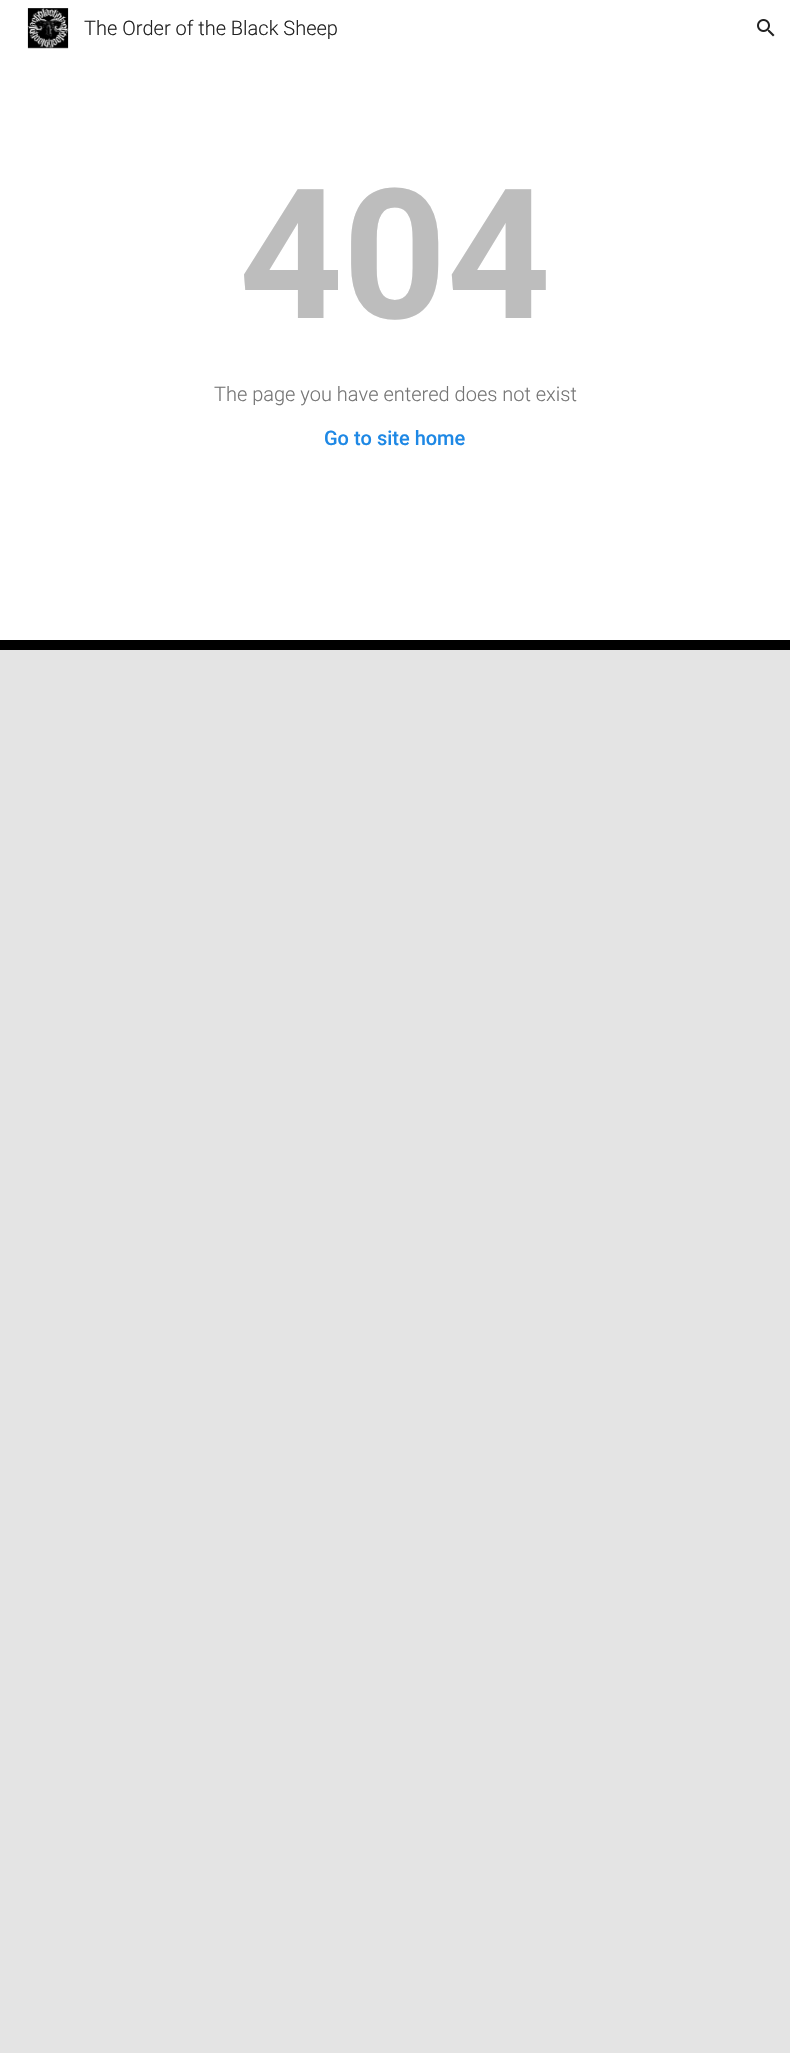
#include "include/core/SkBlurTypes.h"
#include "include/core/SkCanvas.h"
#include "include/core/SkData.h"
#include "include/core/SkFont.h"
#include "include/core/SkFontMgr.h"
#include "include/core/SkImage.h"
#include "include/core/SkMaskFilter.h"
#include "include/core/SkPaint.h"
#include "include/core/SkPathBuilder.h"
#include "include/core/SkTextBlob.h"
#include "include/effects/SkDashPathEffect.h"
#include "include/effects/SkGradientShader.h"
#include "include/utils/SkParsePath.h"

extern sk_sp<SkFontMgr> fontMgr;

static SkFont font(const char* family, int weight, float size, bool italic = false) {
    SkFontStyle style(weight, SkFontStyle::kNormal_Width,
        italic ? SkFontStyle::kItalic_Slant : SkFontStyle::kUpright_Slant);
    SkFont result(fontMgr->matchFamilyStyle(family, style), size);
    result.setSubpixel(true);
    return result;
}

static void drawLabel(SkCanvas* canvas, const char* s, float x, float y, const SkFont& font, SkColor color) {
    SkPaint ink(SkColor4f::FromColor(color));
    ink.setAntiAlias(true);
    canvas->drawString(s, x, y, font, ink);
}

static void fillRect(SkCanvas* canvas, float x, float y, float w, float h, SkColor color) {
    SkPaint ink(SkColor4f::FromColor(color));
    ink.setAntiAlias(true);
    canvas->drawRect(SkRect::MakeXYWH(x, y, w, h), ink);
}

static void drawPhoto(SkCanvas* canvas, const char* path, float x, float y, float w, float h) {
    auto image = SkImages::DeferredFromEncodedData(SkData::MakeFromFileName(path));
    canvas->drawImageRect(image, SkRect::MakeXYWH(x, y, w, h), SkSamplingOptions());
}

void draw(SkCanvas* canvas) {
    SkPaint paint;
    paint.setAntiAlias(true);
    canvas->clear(0xFFE4E4E4);
    fillRect(canvas, 0, 0, 790, 640, 0xFFFFFFFF);
    drawPhoto(canvas, "assets/img1.png", 27, 8, 42, 41);
    SkFont font1 = font("Roboto", 300, 20);
    drawLabel(canvas, "The Order of the Black Sheep", 84, 35, font1, 0xFF212121);
    drawPhoto(canvas, "assets/img2.png", 757, 19, 18, 18);
    fillRect(canvas, 0, 640, 790, 10, 0xFF000000);
    SkFont font2 = font("Roboto", 700, 181);
    drawLabel(canvas, "404", 239, 318, font2, 0xFFBDBDBD);
    drawLabel(canvas, "The page you have entered does not exist", 214, 401, font1, 0xFF757575);
    SkFont font3 = font("Roboto", 500, 20);
    drawLabel(canvas, "Go to site home", 324, 445, font3, 0xFF1E88E5);
}
